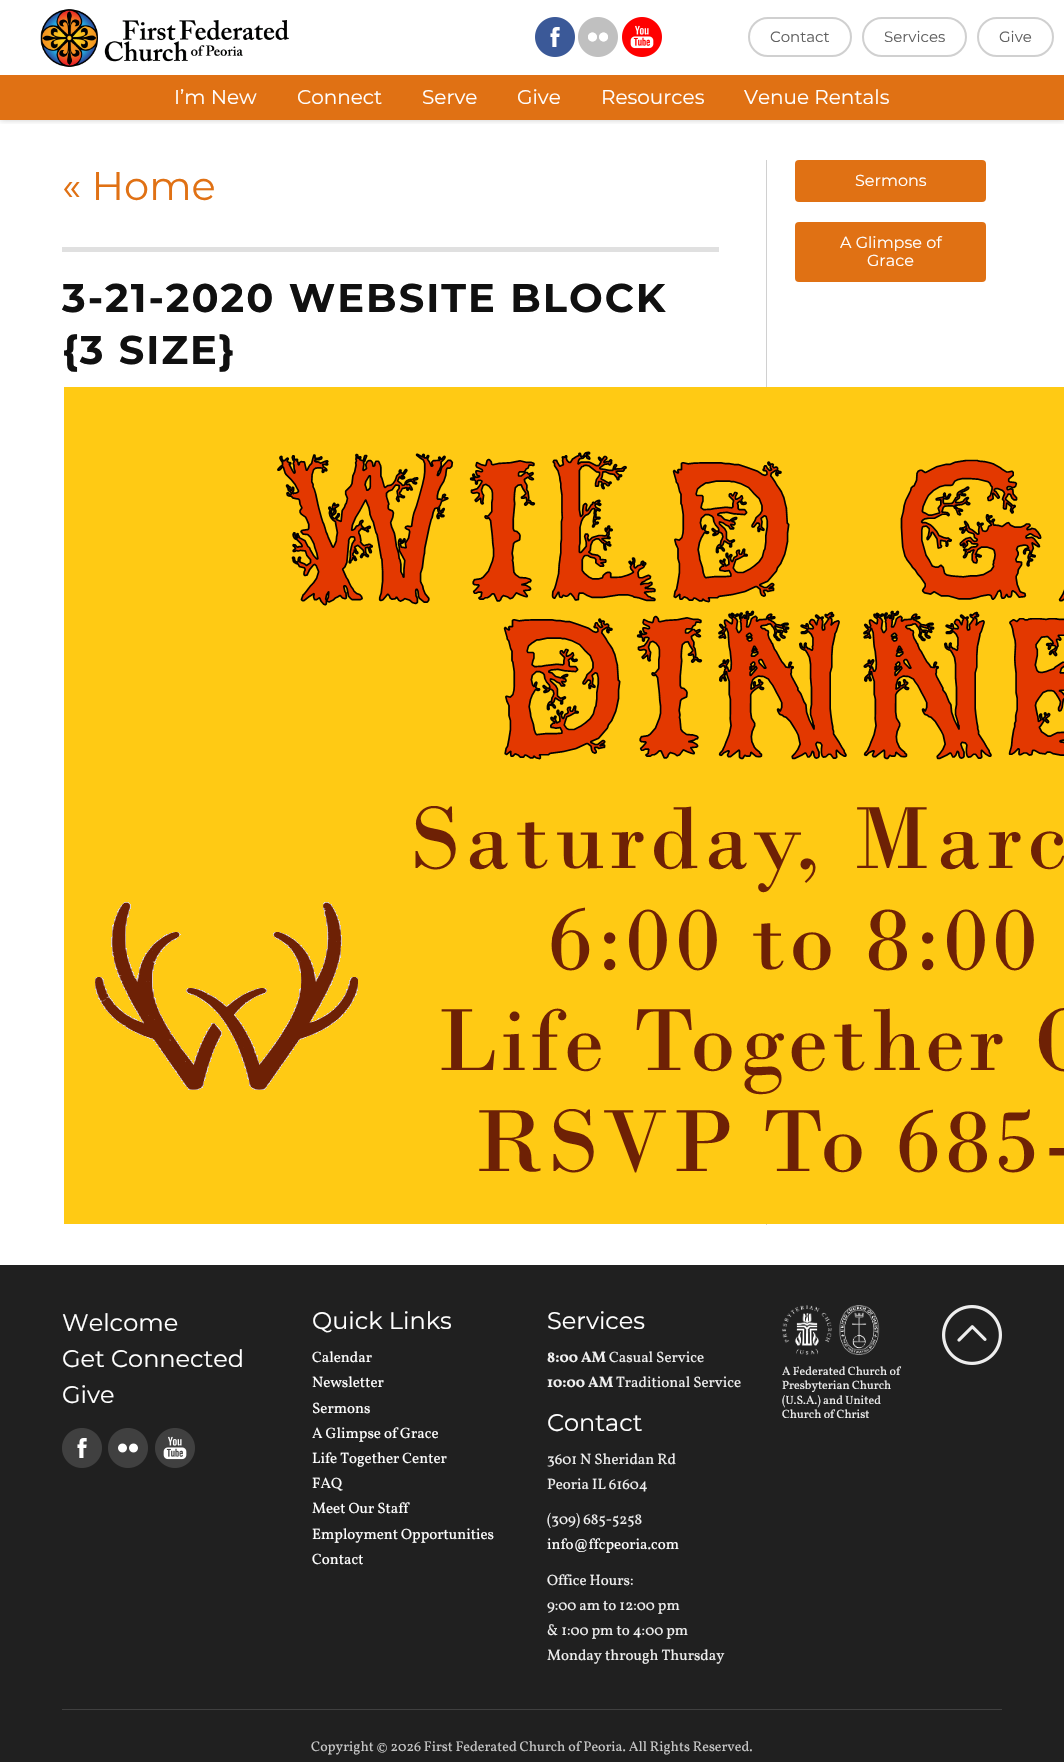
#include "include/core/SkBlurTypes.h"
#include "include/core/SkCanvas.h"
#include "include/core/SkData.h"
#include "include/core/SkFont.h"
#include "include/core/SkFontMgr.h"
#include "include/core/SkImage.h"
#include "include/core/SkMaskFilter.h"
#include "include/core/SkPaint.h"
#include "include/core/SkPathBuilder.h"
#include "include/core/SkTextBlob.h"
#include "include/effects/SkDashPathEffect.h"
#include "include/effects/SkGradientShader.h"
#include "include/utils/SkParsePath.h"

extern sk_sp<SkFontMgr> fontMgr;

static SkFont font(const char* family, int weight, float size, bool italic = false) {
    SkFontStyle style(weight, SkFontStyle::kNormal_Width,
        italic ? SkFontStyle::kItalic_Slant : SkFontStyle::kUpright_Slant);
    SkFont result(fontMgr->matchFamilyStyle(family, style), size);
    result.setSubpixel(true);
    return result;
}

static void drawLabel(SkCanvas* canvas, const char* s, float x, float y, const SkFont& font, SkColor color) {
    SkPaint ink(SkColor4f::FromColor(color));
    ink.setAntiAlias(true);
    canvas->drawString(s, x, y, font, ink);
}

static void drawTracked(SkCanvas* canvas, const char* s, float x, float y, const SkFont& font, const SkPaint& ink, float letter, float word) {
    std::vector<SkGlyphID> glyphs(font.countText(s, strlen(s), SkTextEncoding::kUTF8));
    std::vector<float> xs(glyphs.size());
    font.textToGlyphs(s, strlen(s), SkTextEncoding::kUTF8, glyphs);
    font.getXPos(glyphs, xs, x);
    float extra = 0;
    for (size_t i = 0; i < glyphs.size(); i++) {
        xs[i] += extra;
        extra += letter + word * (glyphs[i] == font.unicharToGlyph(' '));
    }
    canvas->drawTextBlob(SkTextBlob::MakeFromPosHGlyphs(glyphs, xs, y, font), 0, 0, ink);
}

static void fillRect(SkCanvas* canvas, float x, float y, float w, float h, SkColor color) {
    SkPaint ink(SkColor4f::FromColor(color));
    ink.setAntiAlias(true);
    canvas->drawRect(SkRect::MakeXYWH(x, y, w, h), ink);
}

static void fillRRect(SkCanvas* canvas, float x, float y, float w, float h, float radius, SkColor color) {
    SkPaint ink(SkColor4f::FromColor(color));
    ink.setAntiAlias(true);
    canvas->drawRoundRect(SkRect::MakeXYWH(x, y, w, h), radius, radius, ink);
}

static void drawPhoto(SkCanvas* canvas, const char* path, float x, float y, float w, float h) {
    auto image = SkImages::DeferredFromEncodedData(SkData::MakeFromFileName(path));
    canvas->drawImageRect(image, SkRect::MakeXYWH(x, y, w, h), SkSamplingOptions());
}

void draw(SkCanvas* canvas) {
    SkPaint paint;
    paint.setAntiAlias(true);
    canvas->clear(0xFFFFFFFF);
    canvas->save();
    canvas->clipRect(SkRect::MakeXYWH(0, 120, 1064, 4));
    paint.setColor(0x33000000);
    paint.setMaskFilter(SkMaskFilter::MakeBlur(kNormal_SkBlurStyle, 3));
    canvas->drawRect(SkRect::MakeXYWH(0, 0, 1064, 120), paint);
    paint.setMaskFilter(nullptr);
    canvas->restore();
    drawPhoto(canvas, "assets/img1.png", 40, 9, 249, 58);
    drawPhoto(canvas, "assets/img2.png", 535, 17, 40, 40);
    drawPhoto(canvas, "assets/img3.png", 578, 17, 40, 40);
    drawPhoto(canvas, "assets/img4.png", 622, 17, 40, 40);
    paint.setStroke(true);
    paint.setStrokeWidth(2);
    paint.setColor(0xFFD0D0D0);
    canvas->drawRoundRect(SkRect::MakeXYWH(749, 18, 102, 38), 19, 19, paint);
    SkFont font1 = font("Montserrat", 400, 15);
    drawLabel(canvas, "Contact", 770, 42, font1, 0xFF606060);
    canvas->drawRoundRect(SkRect::MakeXYWH(863, 18, 103, 38), 19, 19, paint);
    drawLabel(canvas, "Services", 884, 42, font1, 0xFF606060);
    canvas->drawRoundRect(SkRect::MakeXYWH(978, 18, 75, 38), 19, 19, paint);
    drawLabel(canvas, "Give", 999, 42, font1, 0xFF606060);
    fillRect(canvas, 0, 75, 1064, 45, 0xFFE07114);
    SkFont font2 = font("Montserrat", 400, 20);
    drawLabel(canvas, "I’m New", 174, 104, font2, 0xFFFFFFFF);
    drawLabel(canvas, "Connect", 297, 104, font2, 0xFFFFFFFF);
    drawLabel(canvas, "Serve", 422, 104, font2, 0xFFFFFFFF);
    drawLabel(canvas, "Give", 517, 104, font2, 0xFFFFFFFF);
    drawLabel(canvas, "Resources", 601, 104, font2, 0xFFFFFFFF);
    drawLabel(canvas, "Venue Rentals", 744, 104, font2, 0xFFFFFFFF);
    fillRect(canvas, 766, 160, 1, 1065, 0xFFD0D0D0);
    SkFont font3 = font("Montserrat", 400, 40);
    drawLabel(canvas, "« Home", 62, 200, font3, 0xFFE07114);
    fillRect(canvas, 62, 247, 657, 5, 0xFFE0E0E0);
    SkFont font4 = font("Montserrat", 700, 40);
    paint.setStroke(false);
    paint.setColor(0xFF101010);
    drawTracked(canvas, "3-21-2020 WEBSITE BLOCK", 62, 312, font4, paint, 2, 0);
    drawTracked(canvas, "{3 SIZE}", 62, 364, font4, paint, 2, 0);
    drawPhoto(canvas, "assets/img5.png", 64, 387, 1000, 837);
    fillRRect(canvas, 795, 160, 191, 42, 4, 0xFFE07114);
    SkFont font5 = font("Montserrat", 400, 16);
    drawLabel(canvas, "Sermons", 855, 186, font5, 0xFFFFFFFF);
    fillRRect(canvas, 795, 222, 191, 60, 4, 0xFFE07114);
    drawLabel(canvas, "A Glimpse of", 840, 248, font5, 0xFFFFFFFF);
    drawLabel(canvas, "Grace", 867, 266, font5, 0xFFFFFFFF);
    fillRect(canvas, 0, 1265, 1064, 497, 0xFF202020);
    SkFont font6 = font("Montserrat", 400, 24);
    drawLabel(canvas, "Welcome", 62, 1331, font6, 0xFFFFFFFF);
    drawLabel(canvas, "Get Connected", 62, 1367, font6, 0xFFFFFFFF);
    drawLabel(canvas, "Give", 62, 1403, font6, 0xFFFFFFFF);
    drawPhoto(canvas, "assets/img6.png", 62, 1428, 40, 40);
    drawPhoto(canvas, "assets/img7.png", 108, 1428, 40, 40);
    drawPhoto(canvas, "assets/img8.png", 155, 1428, 40, 40);
    drawLabel(canvas, "Quick Links", 312, 1329, font6, 0xFFFFFFFF);
    SkFont font7 = font("Vollkorn", 400, 15);
    drawLabel(canvas, "Calendar", 312, 1362, font7, 0xFFFFFFFF);
    drawLabel(canvas, "Newsletter", 312, 1387, font7, 0xFFFFFFFF);
    drawLabel(canvas, "Sermons", 312, 1413, font7, 0xFFFFFFFF);
    drawLabel(canvas, "A Glimpse of Grace", 312, 1438, font7, 0xFFFFFFFF);
    drawLabel(canvas, "Life Together Center", 312, 1463, font7, 0xFFFFFFFF);
    drawLabel(canvas, "FAQ", 312, 1488, font7, 0xFFFFFFFF);
    drawLabel(canvas, "Meet Our Staff", 312, 1513, font7, 0xFFFFFFFF);
    drawLabel(canvas, "Employment Opportunities", 312, 1539, font7, 0xFFFFFFFF);
    drawLabel(canvas, "Contact", 312, 1564, font7, 0xFFFFFFFF);
    drawLabel(canvas, "Services", 547, 1329, font6, 0xFFFFFFFF);
    SkFont font8 = font("Vollkorn", 700, 15);
    drawLabel(canvas, "8:00 AM", 547, 1362, font8, 0xFFF0F0F0);
    drawLabel(canvas, "Casual Service", 609, 1362, font7, 0xFFF0F0F0);
    drawLabel(canvas, "10:00 AM", 547, 1387, font8, 0xFFF0F0F0);
    drawLabel(canvas, "Traditional Service", 616, 1387, font7, 0xFFF0F0F0);
    drawLabel(canvas, "Contact", 547, 1431, font6, 0xFFFFFFFF);
    drawLabel(canvas, "3601 N Sheridan Rd", 547, 1464, font7, 0xFFF0F0F0);
    drawLabel(canvas, "Peoria IL 61604", 547, 1489, font7, 0xFFF0F0F0);
    drawLabel(canvas, "(309) 685-5258", 547, 1524, font7, 0xFFF0F0F0);
    drawLabel(canvas, "info@ffcpeoria.com", 547, 1549, font7, 0xFFFFFFFF);
    drawLabel(canvas, "Office Hours:", 547, 1585, font7, 0xFFF0F0F0);
    drawLabel(canvas, "9:00 am to 12:00 pm", 547, 1610, font7, 0xFFF0F0F0);
    drawLabel(canvas, "& 1:00 pm to 4:00 pm", 547, 1635, font7, 0xFFF0F0F0);
    drawLabel(canvas, "Monday through Thursday", 547, 1660, font7, 0xFFF0F0F0);
    drawPhoto(canvas, "assets/img9.png", 782, 1305, 50, 50);
    drawPhoto(canvas, "assets/img10.png", 839, 1305, 41, 50);
    SkFont font9 = font("Vollkorn", 400, 12);
    drawLabel(canvas, "A Federated Church of", 782, 1375, font9, 0xFFF0F0F0);
    drawLabel(canvas, "Presbyterian Church", 782, 1389, font9, 0xFFF0F0F0);
    drawLabel(canvas, "(U.S.A.) and United", 782, 1404, font9, 0xFFF0F0F0);
    drawLabel(canvas, "Church of Christ", 782, 1418, font9, 0xFFF0F0F0);
    drawPhoto(canvas, "assets/img11.png", 942, 1305, 60, 60);
    fillRect(canvas, 62, 1709, 940, 1, 0xFF404040);
    SkFont font10 = font("Vollkorn", 400, 14);
    drawLabel(canvas, "Copyright © 2026 First Federated Church of Peoria. All Rights Reserved.", 311, 1751, font10, 0xFFC7C7C7);
}
